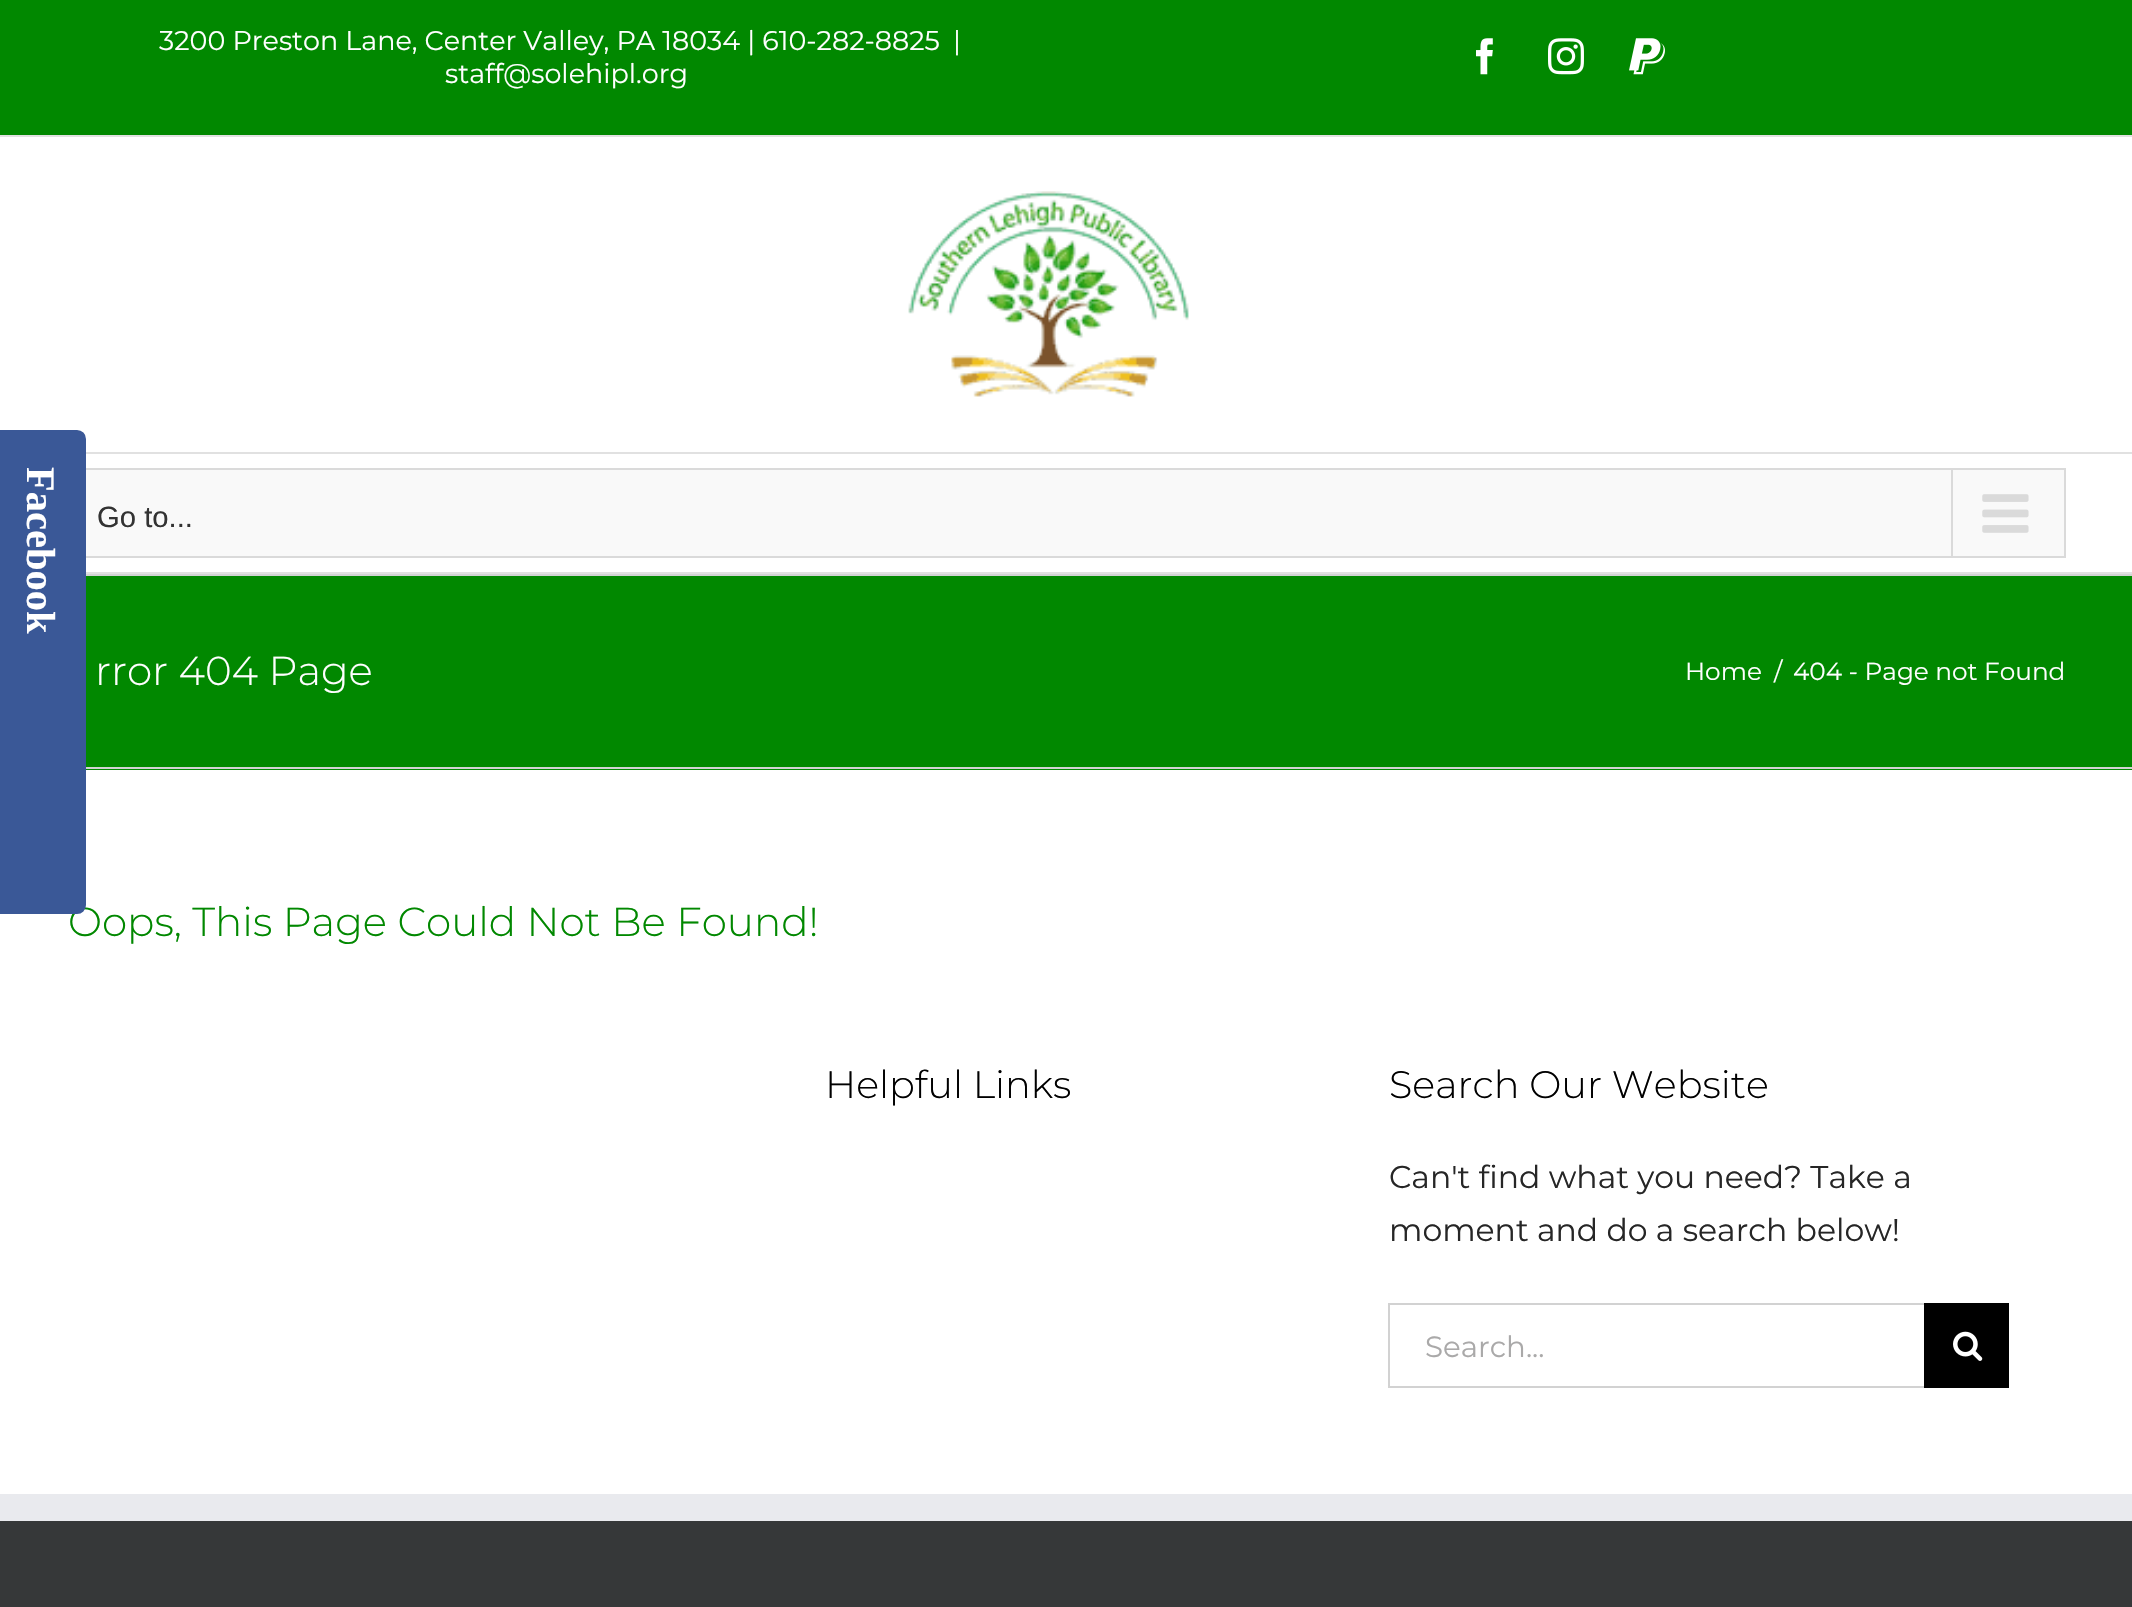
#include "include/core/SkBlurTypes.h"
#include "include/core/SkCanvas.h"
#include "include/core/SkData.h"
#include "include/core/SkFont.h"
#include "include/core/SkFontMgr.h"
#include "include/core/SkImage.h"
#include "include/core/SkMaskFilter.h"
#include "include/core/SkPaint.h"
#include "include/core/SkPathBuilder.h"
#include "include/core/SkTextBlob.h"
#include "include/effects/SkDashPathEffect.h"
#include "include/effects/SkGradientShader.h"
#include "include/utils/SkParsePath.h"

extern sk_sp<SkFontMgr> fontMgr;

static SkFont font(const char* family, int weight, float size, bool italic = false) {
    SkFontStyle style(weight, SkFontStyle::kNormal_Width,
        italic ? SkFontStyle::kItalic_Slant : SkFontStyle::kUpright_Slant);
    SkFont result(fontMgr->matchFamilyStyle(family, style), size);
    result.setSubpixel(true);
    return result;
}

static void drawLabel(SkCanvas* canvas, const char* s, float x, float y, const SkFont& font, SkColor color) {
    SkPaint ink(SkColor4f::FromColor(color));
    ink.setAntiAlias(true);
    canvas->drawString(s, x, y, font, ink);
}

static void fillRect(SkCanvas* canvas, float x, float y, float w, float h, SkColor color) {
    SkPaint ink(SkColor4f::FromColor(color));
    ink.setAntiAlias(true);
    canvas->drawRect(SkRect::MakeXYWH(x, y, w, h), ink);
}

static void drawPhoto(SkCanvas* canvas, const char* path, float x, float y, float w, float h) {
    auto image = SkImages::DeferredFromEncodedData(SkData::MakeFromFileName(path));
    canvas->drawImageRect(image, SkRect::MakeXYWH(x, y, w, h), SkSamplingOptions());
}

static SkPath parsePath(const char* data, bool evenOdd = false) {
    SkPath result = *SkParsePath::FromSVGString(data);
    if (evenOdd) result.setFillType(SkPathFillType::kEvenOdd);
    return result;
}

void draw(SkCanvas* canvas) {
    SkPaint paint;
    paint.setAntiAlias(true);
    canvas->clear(0xFF018800);
    fillRect(canvas, 0, 137, 2132, 318, 0xFFFFFFFF);
    fillRect(canvas, 86, 455, 2046, 117, 0xFFFFFFFF);
    fillRect(canvas, 86, 470, 1978, 86, 0xFFF9F9F9);
    paint.setStroke(true);
    paint.setStrokeWidth(2);
    paint.setColor(0xFFDADADA);
    canvas->drawRect(SkRect::MakeXYWH(69, 469, 1996, 88), paint);
    fillRect(canvas, 0, 770, 2132, 724, 0xFFFFFFFF);
    SkFont font1 = font("Montserrat", 300, 40.5f);
    drawLabel(canvas, "Oops, This Page Could Not Be Found!", 68, 936, font1, 0xFF018800);
    paint.setStroke(false);
    paint.setColor(0xFF3A5897);
    canvas->drawPath(parsePath("M-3 431H77C81.5 431 85 434.5 85 439V905C85 909.5 81.5 913 77 913H-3Z"), paint);
    paint.setStroke(true);
    canvas->drawPath(parsePath("M-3 431H77C81.5 431 85 434.5 85 439V905C85 909.5 81.5 913 77 913H-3Z"), paint);
    SkFont font2 = font("Liberation Serif", 700, 40.5f);
    canvas->save();
    canvas->rotate(90, 27, 467);
    drawLabel(canvas, "Facebook", 27, 467, font2, 0xFFFFFFFF);
    canvas->restore();
    fillRect(canvas, 0, 135, 2132, 2, 0xFFE1E1E1);
    SkFont font3 = font("Montserrat", 400, 27);
    drawLabel(canvas, "3200 Preston Lane, Center Valley, PA 18034 | 610-282-8825", 159, 50, font3, 0xFFFFFFFF);
    drawLabel(canvas, "|", 953, 50, font3, 0xFFFFFFFF);
    drawLabel(canvas, "staff@solehipl.org", 445, 83, font3, 0xFFFFFFFF);
    drawPhoto(canvas, "assets/img1.png", 1476, 38, 17, 37);
    drawPhoto(canvas, "assets/img2.png", 1548, 38, 36, 37);
    drawPhoto(canvas, "assets/img3.png", 1629, 38, 36, 37);
    fillRect(canvas, 86, 452, 2046, 2, 0xFFE1E1E1);
    drawPhoto(canvas, "assets/img4.png", 908, 191, 281, 206);
    fillRect(canvas, 86, 572, 2046, 2, 0xFFE1E1E1);
    SkFont font4 = font("Liberation Sans", 400, 29.25f);
    drawLabel(canvas, "Go to...", 97, 527, font4, 0xFF333333);
    fillRect(canvas, 1951, 470, 2, 86, 0xFFDADADA);
    drawPhoto(canvas, "assets/img5.png", 1982, 494, 47, 39);
    fillRect(canvas, 86, 574, 2046, 2, 0xFFD2D3D4);
    fillRect(canvas, 86, 767, 2046, 2, 0xFFD2D3D4);
    drawLabel(canvas, "rror 404 Page", 95, 685, font1, 0xFFFFFFFF);
    SkFont font5 = font("Montserrat", 400, 24.75f);
    drawLabel(canvas, "Home", 1685, 680, font5, 0xFFFFFFFF);
    drawLabel(canvas, "/", 1774, 680, font5, 0xFFFFFFFF);
    drawLabel(canvas, "404 - Page not Found", 1793, 680, font5, 0xFFFFFFFF);
    SkFont font6 = font("Montserrat", 300, 38.25f);
    drawLabel(canvas, "Helpful Links", 825, 1098, font6, 0xFF000000);
    drawLabel(canvas, "Search Our Website", 1389, 1098, font6, 0xFF000000);
    SkFont font7 = font("Montserrat", 400, 31.5f);
    drawLabel(canvas, "Can't find what you need? Take a", 1389, 1188, font7, 0xFF262626);
    drawLabel(canvas, "moment and do a search below!", 1389, 1241, font7, 0xFF262626);
    fillRect(canvas, 1388, 1303, 536, 2, 0xFFD2D2D2);
    fillRect(canvas, 1388, 1386, 536, 2, 0xFFD2D2D2);
    fillRect(canvas, 1388, 1303, 2, 85, 0xFFD2D2D2);
    SkFont font8 = font("Montserrat", 400, 29.25f);
    drawLabel(canvas, "Search...", 1425, 1357, font8, 0xFFAAA9A9);
    fillRect(canvas, 1924, 1303, 85, 85, 0xFF000000);
    drawPhoto(canvas, "assets/img6.png", 1953, 1331, 30, 30);
    fillRect(canvas, 0, 1521, 2132, 86, 0xFF363839);
    fillRect(canvas, 0, 1494, 2132, 27, 0xFFE9EAEE);
}
